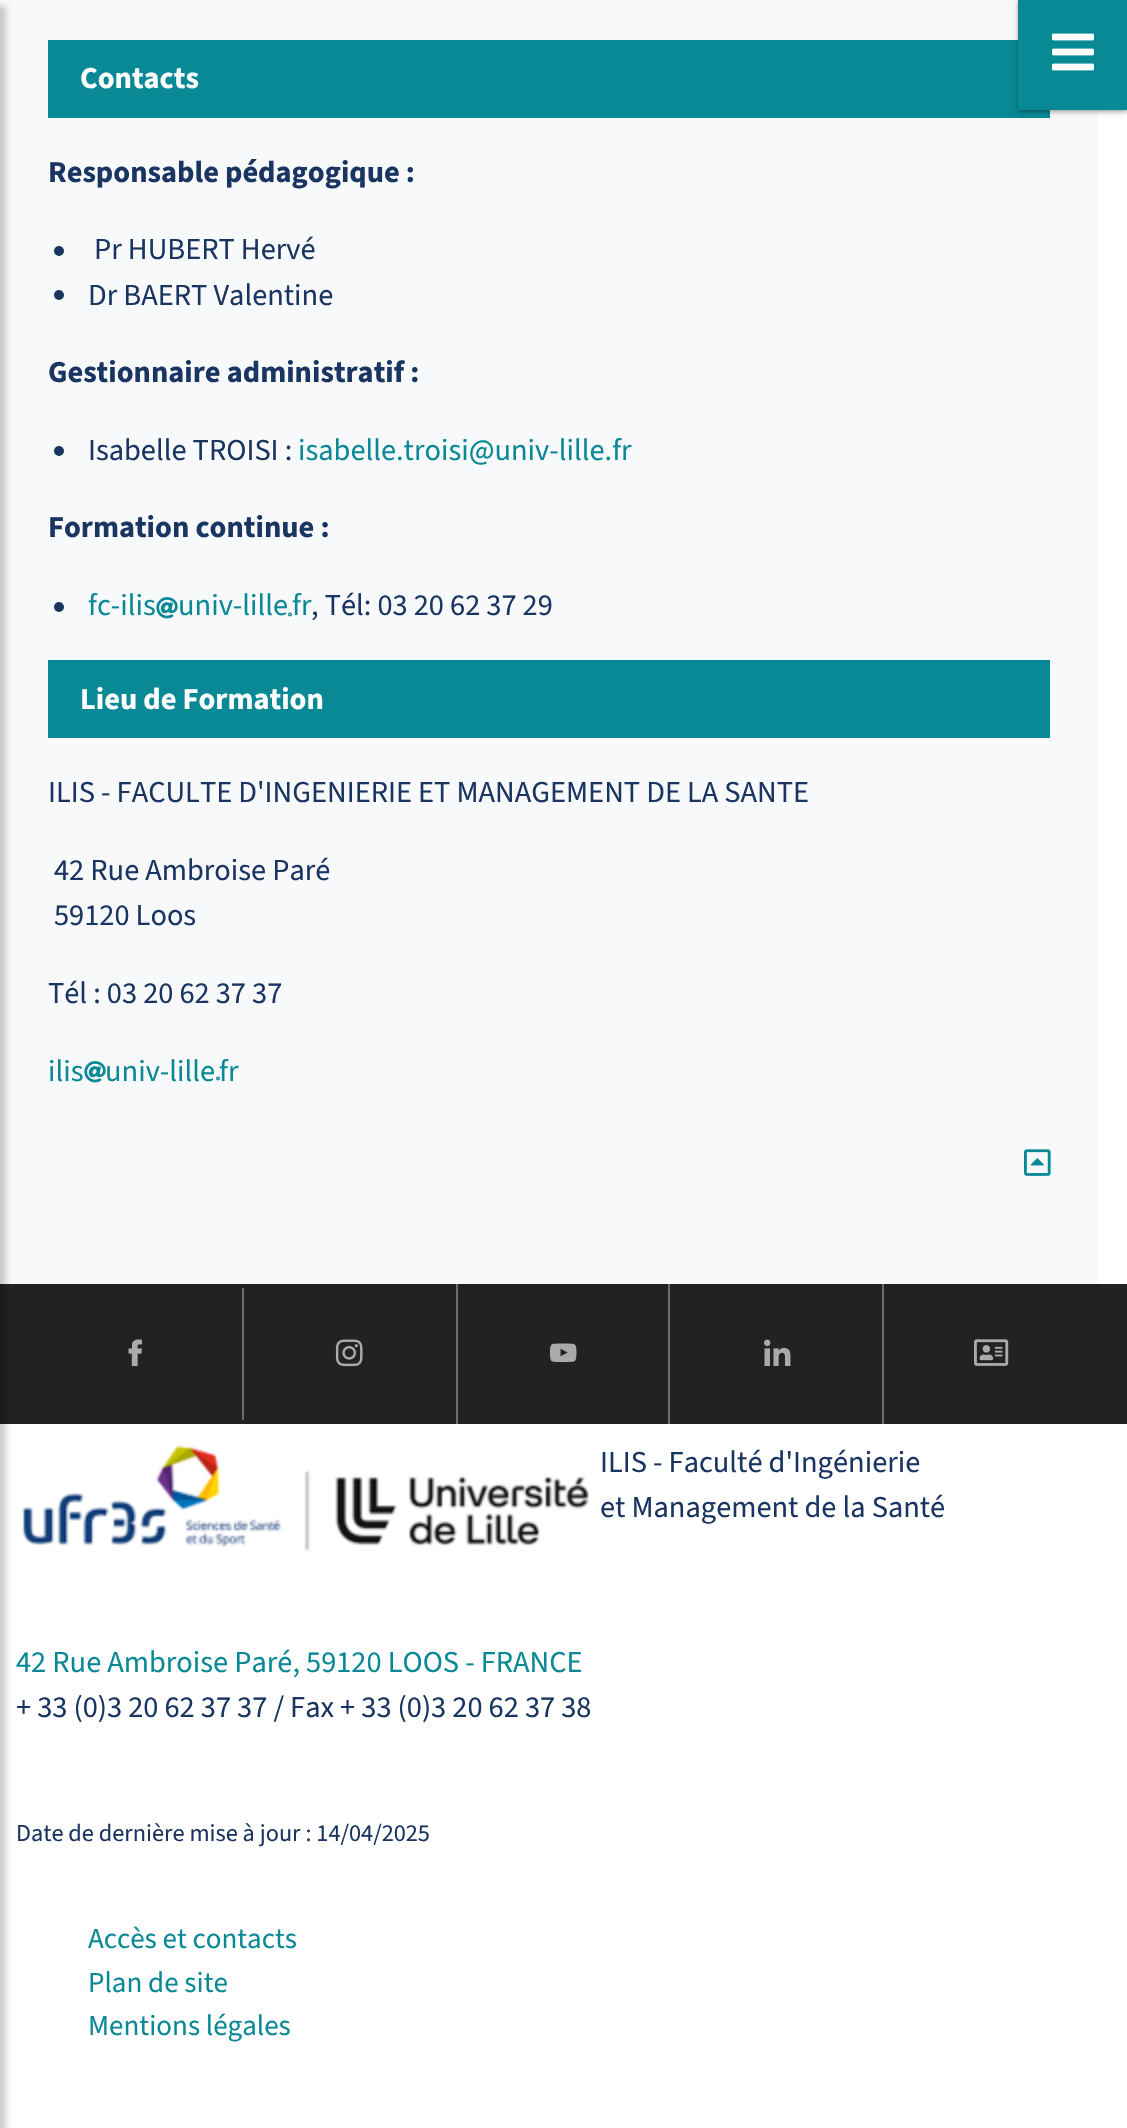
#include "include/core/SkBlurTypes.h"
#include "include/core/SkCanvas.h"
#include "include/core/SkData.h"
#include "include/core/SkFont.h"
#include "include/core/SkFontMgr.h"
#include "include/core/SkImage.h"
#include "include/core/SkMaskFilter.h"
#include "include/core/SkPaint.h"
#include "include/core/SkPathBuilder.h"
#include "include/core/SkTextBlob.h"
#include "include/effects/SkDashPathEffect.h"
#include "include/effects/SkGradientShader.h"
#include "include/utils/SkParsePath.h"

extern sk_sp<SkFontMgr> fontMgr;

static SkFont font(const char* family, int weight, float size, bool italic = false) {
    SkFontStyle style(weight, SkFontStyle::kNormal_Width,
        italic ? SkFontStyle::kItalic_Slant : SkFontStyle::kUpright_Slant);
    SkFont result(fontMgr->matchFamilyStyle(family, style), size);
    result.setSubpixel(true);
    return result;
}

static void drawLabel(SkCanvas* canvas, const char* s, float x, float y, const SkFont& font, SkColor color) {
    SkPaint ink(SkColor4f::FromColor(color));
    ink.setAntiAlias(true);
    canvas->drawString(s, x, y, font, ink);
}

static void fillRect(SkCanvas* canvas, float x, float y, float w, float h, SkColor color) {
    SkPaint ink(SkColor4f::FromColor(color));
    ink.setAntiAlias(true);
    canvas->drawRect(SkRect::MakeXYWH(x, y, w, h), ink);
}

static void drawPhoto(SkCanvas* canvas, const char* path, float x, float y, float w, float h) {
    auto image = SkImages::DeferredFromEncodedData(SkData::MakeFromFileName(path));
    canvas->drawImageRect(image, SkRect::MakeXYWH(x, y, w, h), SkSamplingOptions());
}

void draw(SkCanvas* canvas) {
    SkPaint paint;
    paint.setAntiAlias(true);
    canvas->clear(0xFFFFFFFF);
    fillRect(canvas, 0, 0, 1098, 1284, 0xFFF8F9FA);
    fillRect(canvas, 0, 1284, 1127, 140, 0xFF222222);
    paint.setColor(0x33000000);
    paint.setMaskFilter(SkMaskFilter::MakeBlur(kNormal_SkBlurStyle, 3));
    canvas->drawRect(SkRect::MakeXYWH(-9, 6, 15, 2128), paint);
    paint.setMaskFilter(nullptr);
    fillRect(canvas, 48, 40, 1002, 78, 0xFF098995);
    SkFont font1 = font("Source Sans 3", 200, 30.4f);
    drawLabel(canvas, "Contacts", 80, 88, font1, 0xFFFFFFFF);
    drawLabel(canvas, "Responsable pédagogique :", 48, 182, font1, 0xFF1A3561);
    paint.setColor(0xFF1A3561);
    canvas->drawCircle(59, 251, 5, paint);
    SkFont font2 = font("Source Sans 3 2", 200, 30.4f);
    drawLabel(canvas, "Pr HUBERT Hervé", 94, 259, font2, 0xFF1A3561);
    canvas->drawCircle(59, 295, 5, paint);
    drawLabel(canvas, "Dr BAERT Valentine", 88, 305, font2, 0xFF1A3561);
    drawLabel(canvas, "Gestionnaire administratif :", 48, 382, font1, 0xFF1A3561);
    canvas->drawCircle(59, 451, 5, paint);
    drawLabel(canvas, "Isabelle TROISI :", 88, 460, font2, 0xFF1A3561);
    drawLabel(canvas, "isabelle.troisi@univ-lille.fr", 298, 460, font2, 0xFF098995);
    drawLabel(canvas, "Formation continue :", 48, 537, font1, 0xFF1A3561);
    canvas->drawCircle(59, 607, 5, paint);
    drawLabel(canvas, "fc-ilis", 88, 615, font2, 0xFF098995);
    drawPhoto(canvas, "assets/img1.png", 156, 597, 22, 22);
    drawLabel(canvas, "univ-lille", 178, 615, font2, 0xFF098995);
    drawPhoto(canvas, "assets/img2.png", 288, 612, 4, 5);
    drawLabel(canvas, "fr", 292, 615, font2, 0xFF098995);
    drawLabel(canvas, ", Tél: 03 20 62 37 29", 311, 615, font2, 0xFF1A3561);
    fillRect(canvas, 48, 660, 1002, 78, 0xFF098995);
    drawLabel(canvas, "Lieu de Formation", 80, 709, font1, 0xFFFFFFFF);
    drawLabel(canvas, "ILIS - FACULTE D'INGENIERIE ET MANAGEMENT DE LA SANTE", 48, 802, font2, 0xFF1A3561);
    drawLabel(canvas, "42 Rue Ambroise Paré", 54, 880, font2, 0xFF1A3561);
    drawLabel(canvas, "59120 Loos", 54, 925, font2, 0xFF1A3561);
    drawLabel(canvas, "Tél : 03 20 62 37 37", 48, 1003, font2, 0xFF1A3561);
    drawLabel(canvas, "ilis", 48, 1081, font2, 0xFF098995);
    drawPhoto(canvas, "assets/img1.png", 84, 1061, 22, 22);
    drawLabel(canvas, "univ-lille", 105, 1081, font2, 0xFF098995);
    drawPhoto(canvas, "assets/img2.png", 216, 1076, 4, 5);
    drawLabel(canvas, "fr", 219, 1081, font2, 0xFF098995);
    drawPhoto(canvas, "assets/img3.png", 1024, 1149, 27, 27);
    paint.setColor(0x3D000000);
    paint.setMaskFilter(SkMaskFilter::MakeBlur(kNormal_SkBlurStyle, 2));
    canvas->drawRect(SkRect::MakeXYWH(1018, 2, 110, 110), paint);
    paint.setMaskFilter(nullptr);
    paint.setColor(0x1F000000);
    paint.setMaskFilter(SkMaskFilter::MakeBlur(kNormal_SkBlurStyle, 3));
    canvas->drawRect(SkRect::MakeXYWH(1018, 2, 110, 110), paint);
    paint.setMaskFilter(nullptr);
    fillRect(canvas, 1018, 0, 109, 110, 0xFF098995);
    drawPhoto(canvas, "assets/img4.png", 1052, 33, 42, 38);
    fillRect(canvas, 242, 1288, 2, 132, 0xFF6D6D6D);
    drawPhoto(canvas, "assets/img5.png", 128, 1339, 14, 28);
    fillRect(canvas, 456, 1284, 2, 140, 0xFF6D6D6D);
    drawPhoto(canvas, "assets/img6.png", 335, 1339, 28, 28);
    fillRect(canvas, 668, 1284, 2, 140, 0xFF6D6D6D);
    drawPhoto(canvas, "assets/img7.png", 549, 1343, 28, 20);
    fillRect(canvas, 882, 1284, 2, 140, 0xFF6D6D6D);
    drawPhoto(canvas, "assets/img8.png", 764, 1339, 27, 27);
    drawPhoto(canvas, "assets/img9.png", 974, 1339, 35, 27);
    drawPhoto(canvas, "assets/img10.png", 21, 1445, 568, 107);
    drawLabel(canvas, "ILIS - Faculté d'Ingénierie", 600, 1472, font2, 0xFF1A3561);
    drawLabel(canvas, "et Management de la Santé", 600, 1517, font2, 0xFF1A3561);
    drawLabel(canvas, "42 Rue Ambroise Paré, 59120 LOOS - FRANCE", 16, 1672, font2, 0xFF098995);
    drawLabel(canvas, "+ 33 (0)3 20 62 37 37 / Fax + 33 (0)3 20 62 37 38", 16, 1717, font2, 0xFF1A3561);
    SkFont font3 = font("Source Sans 3 2", 200, 24.3f);
    drawLabel(canvas, "Date de dernière mise à jour : 14/04/2025", 16, 1841, font3, 0xFF1A3561);
    SkFont font4 = font("Source Sans 3 2", 200, 29);
    drawLabel(canvas, "Accès et contacts", 88, 1948, font4, 0xFF098995);
    drawLabel(canvas, "Plan de site", 88, 1992, font4, 0xFF098995);
    drawLabel(canvas, "Mentions légales", 88, 2035, font4, 0xFF098995);
}
